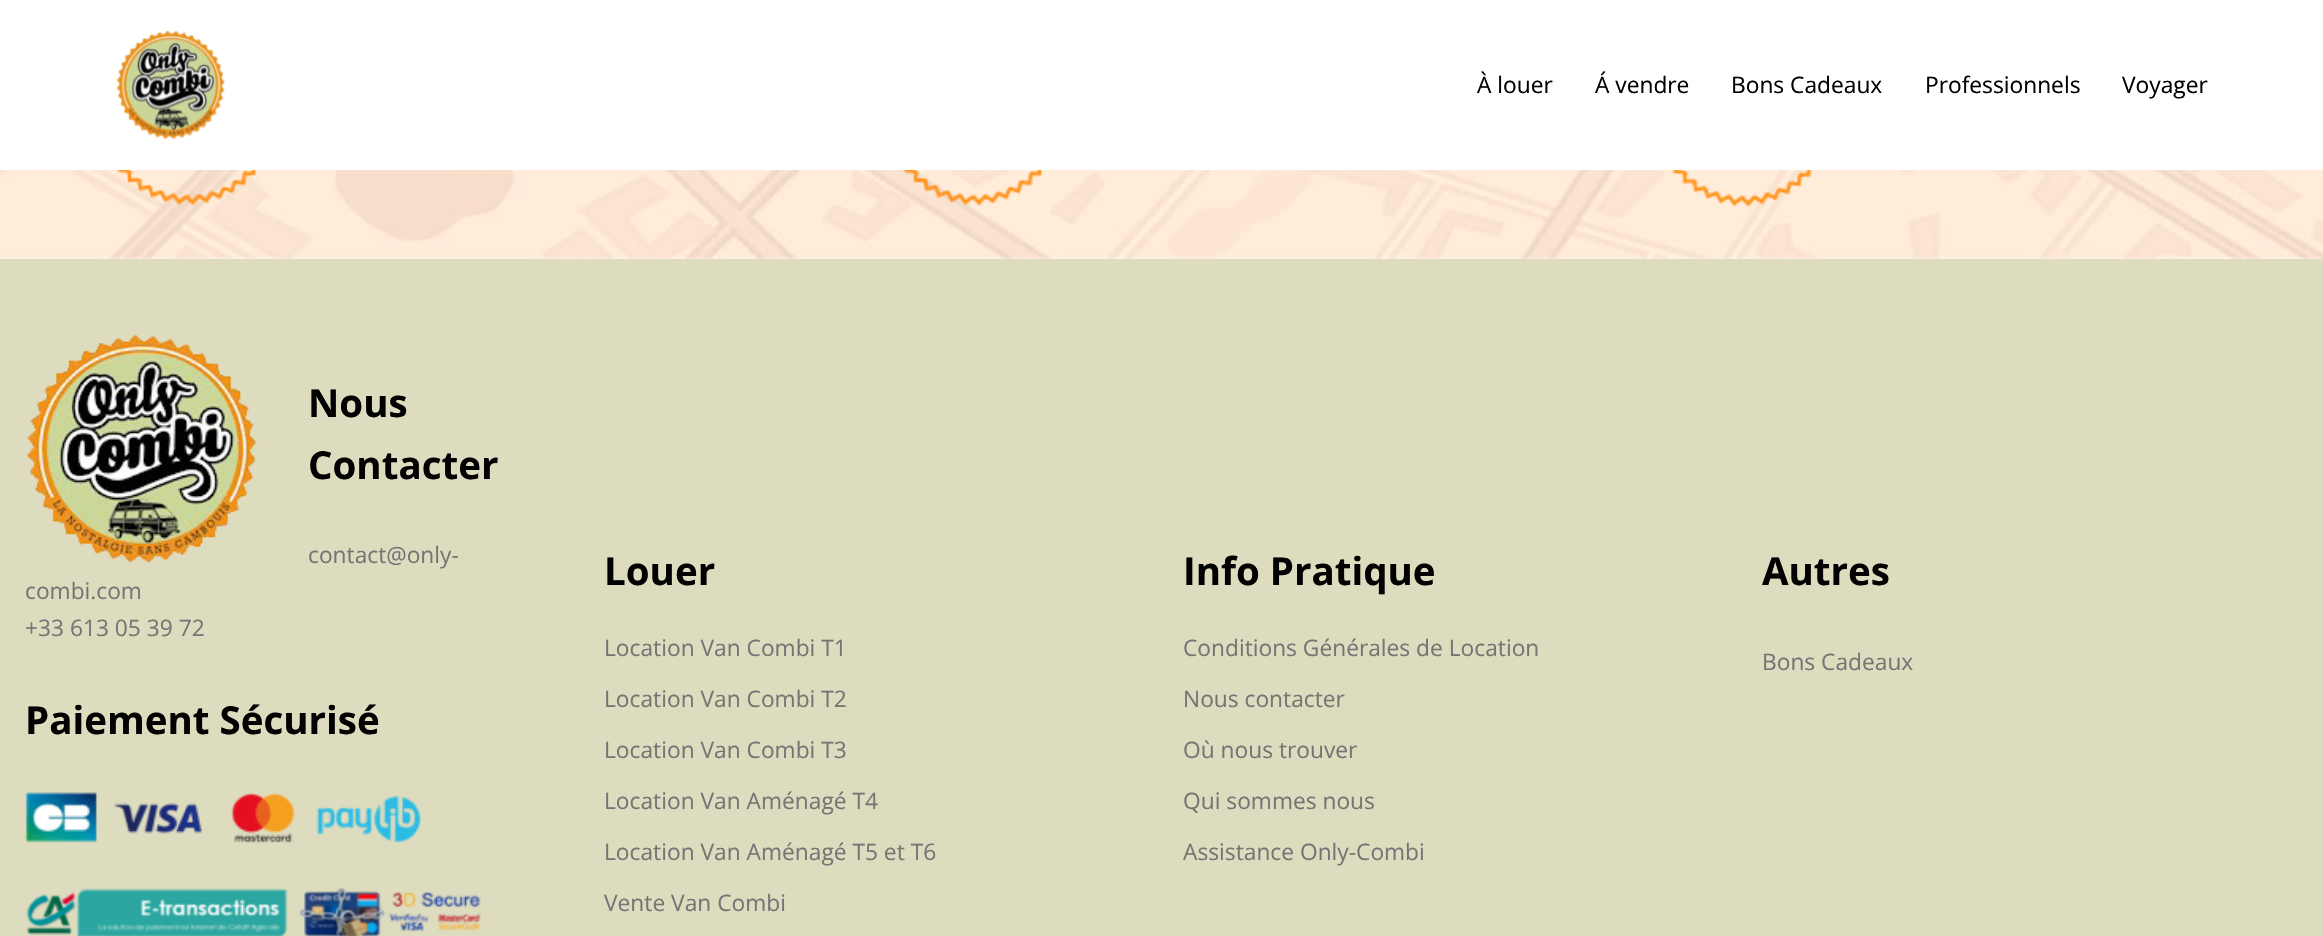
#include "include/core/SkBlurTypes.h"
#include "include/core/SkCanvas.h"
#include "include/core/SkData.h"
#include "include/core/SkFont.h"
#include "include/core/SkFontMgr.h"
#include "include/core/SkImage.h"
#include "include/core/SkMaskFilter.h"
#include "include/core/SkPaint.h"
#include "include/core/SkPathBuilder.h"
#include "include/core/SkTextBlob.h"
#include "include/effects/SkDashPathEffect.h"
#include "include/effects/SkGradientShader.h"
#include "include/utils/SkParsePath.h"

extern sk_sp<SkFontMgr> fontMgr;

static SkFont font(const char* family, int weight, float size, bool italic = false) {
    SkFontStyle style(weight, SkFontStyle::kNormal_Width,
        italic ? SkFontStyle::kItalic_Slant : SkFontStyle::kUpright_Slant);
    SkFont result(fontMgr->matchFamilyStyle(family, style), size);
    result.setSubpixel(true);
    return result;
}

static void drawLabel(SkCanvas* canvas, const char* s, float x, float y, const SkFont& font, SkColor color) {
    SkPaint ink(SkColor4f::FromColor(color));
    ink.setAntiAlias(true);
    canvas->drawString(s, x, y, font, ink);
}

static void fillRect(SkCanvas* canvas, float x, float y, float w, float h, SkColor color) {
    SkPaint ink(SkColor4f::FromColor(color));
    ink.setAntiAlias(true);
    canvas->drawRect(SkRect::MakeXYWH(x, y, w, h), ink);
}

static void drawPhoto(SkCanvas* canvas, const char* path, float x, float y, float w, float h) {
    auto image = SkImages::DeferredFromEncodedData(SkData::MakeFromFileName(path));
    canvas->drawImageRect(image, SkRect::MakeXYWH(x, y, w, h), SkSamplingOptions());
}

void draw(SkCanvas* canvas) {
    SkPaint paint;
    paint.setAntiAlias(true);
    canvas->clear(0xFFFFFFFF);
    drawPhoto(canvas, "assets/img1.png", 116, 30, 110, 110);
    SkFont font1 = font("Open Sans", 400, 22.75f);
    drawLabel(canvas, "À louer", 1477, 93, font1, 0xFF010101);
    drawLabel(canvas, "Á vendre", 1595, 93, font1, 0xFF010101);
    drawLabel(canvas, "Bons Cadeaux", 1731, 93, font1, 0xFF010101);
    drawLabel(canvas, "Professionnels", 1925, 93, font1, 0xFF010101);
    drawLabel(canvas, "Voyager", 2122, 93, font1, 0xFF010101);
    drawPhoto(canvas, "assets/img2.png", 0, 170, 2323, 89);
    drawPhoto(canvas, "assets/img3.png", 116, 170, 140, 36);
    drawPhoto(canvas, "assets/img4.png", 903, 170, 139, 37);
    drawPhoto(canvas, "assets/img5.png", 1672, 170, 140, 37);
    fillRect(canvas, 0, 259, 2323, 677, 0xFFDEDCBE);
    drawPhoto(canvas, "assets/img6.png", 27, 335, 230, 228);
    SkFont font2 = font("Open Sans", 700, 38.5f);
    drawLabel(canvas, "Nous", 308, 417, font2, 0xFF010101);
    drawLabel(canvas, "Contacter", 308, 479, font2, 0xFF010101);
    drawLabel(canvas, "contact@only-", 308, 563, font1, 0xFF757575);
    drawLabel(canvas, "combi.com", 25, 599, font1, 0xFF757575);
    drawLabel(canvas, "+33 613 05 39 72", 25, 636, font1, 0xFF757575);
    drawLabel(canvas, "Paiement Sécurisé", 25, 734, font2, 0xFF010101);
    drawPhoto(canvas, "assets/img7.png", 25, 792, 396, 51);
    drawPhoto(canvas, "assets/img8.png", 26, 887, 456, 49);
    drawLabel(canvas, "Louer", 604, 585, font2, 0xFF010101);
    drawLabel(canvas, "Location Van Combi T1", 604, 656, font1, 0xFF757575);
    drawLabel(canvas, "Location Van Combi T2", 604, 707, font1, 0xFF757575);
    drawLabel(canvas, "Location Van Combi T3", 604, 758, font1, 0xFF757575);
    drawLabel(canvas, "Location Van Aménagé T4", 604, 809, font1, 0xFF757575);
    drawLabel(canvas, "Location Van Aménagé T5 et T6", 604, 860, font1, 0xFF757575);
    drawLabel(canvas, "Vente Van Combi", 604, 911, font1, 0xFF757575);
    drawLabel(canvas, "Info Pratique", 1183, 585, font2, 0xFF010101);
    drawLabel(canvas, "Conditions Générales de Location", 1183, 656, font1, 0xFF757575);
    drawLabel(canvas, "Nous contacter", 1183, 707, font1, 0xFF757575);
    drawLabel(canvas, "Où nous trouver", 1183, 758, font1, 0xFF757575);
    drawLabel(canvas, "Qui sommes nous", 1183, 809, font1, 0xFF757575);
    drawLabel(canvas, "Assistance Only-Combi", 1183, 860, font1, 0xFF757575);
    drawLabel(canvas, "Autres", 1762, 585, font2, 0xFF010101);
    drawLabel(canvas, "Bons Cadeaux", 1762, 670, font1, 0xFF757575);
}
